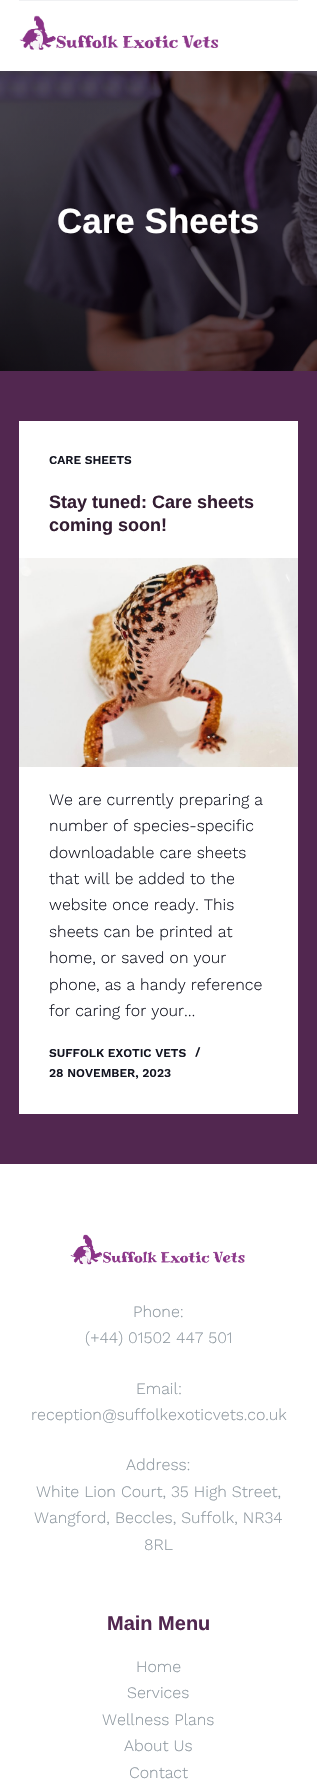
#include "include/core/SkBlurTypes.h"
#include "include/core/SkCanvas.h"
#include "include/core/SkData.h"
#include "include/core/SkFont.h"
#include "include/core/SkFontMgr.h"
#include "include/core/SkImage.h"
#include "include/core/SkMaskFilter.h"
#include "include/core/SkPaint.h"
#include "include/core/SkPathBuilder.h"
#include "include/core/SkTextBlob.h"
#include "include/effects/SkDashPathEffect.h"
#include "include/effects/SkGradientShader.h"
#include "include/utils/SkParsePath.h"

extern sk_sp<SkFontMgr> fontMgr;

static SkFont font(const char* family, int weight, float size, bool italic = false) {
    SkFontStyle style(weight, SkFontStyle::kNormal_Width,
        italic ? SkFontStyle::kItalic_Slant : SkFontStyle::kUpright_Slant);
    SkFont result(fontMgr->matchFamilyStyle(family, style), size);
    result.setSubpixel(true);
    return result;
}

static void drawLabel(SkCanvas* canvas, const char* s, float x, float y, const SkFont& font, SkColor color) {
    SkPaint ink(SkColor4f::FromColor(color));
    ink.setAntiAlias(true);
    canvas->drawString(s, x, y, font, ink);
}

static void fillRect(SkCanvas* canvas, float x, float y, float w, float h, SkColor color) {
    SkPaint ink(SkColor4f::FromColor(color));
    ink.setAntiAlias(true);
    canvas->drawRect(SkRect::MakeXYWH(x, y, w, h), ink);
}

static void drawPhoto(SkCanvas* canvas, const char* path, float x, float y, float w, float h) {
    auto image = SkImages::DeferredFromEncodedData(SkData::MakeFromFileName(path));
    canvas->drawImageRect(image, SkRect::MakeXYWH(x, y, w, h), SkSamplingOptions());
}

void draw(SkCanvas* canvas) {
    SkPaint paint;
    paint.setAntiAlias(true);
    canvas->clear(0xFF522750);
    fillRect(canvas, 0, 0, 317, 71, 0xFFFFFFFF);
    fillRect(canvas, 19, 0, 279, 1, 0xFFF0F1F3);
    drawPhoto(canvas, "assets/img1.png", 19, 15, 200, 35);
    drawPhoto(canvas, "assets/img2.png", 0, 71, 317, 300);
    SkFont font1 = font("Liberation Sans", 700, 35);
    drawLabel(canvas, "Care Sheets", 57, 233, font1, 0xFFFFFFFF);
    fillRect(canvas, 19, 421, 279, 693, 0xFFFFFFFF);
    SkFont font2 = font("Work Sans", 600, 12);
    drawLabel(canvas, "CARE SHEETS", 49, 464, font2, 0xFF121420);
    SkFont font3 = font("Liberation Sans", 700, 18);
    drawLabel(canvas, "Stay tuned: Care sheets", 49, 508, font3, 0xFF331D32);
    drawLabel(canvas, "coming soon!", 49, 531, font3, 0xFF331D32);
    drawPhoto(canvas, "assets/img3.png", 19, 558, 279, 209);
    SkFont font4 = font("Work Sans", 300, 16);
    drawLabel(canvas, "We are currently preparing a", 49, 805, font4, 0xFF121420);
    drawLabel(canvas, "number of species-specific", 49, 831, font4, 0xFF121420);
    drawLabel(canvas, "downloadable care sheets", 49, 858, font4, 0xFF121420);
    drawLabel(canvas, "that will be added to the", 49, 884, font4, 0xFF121420);
    drawLabel(canvas, "website once ready. This", 49, 910, font4, 0xFF121420);
    drawLabel(canvas, "sheets can be printed at", 49, 937, font4, 0xFF121420);
    drawLabel(canvas, "home, or saved on your", 49, 963, font4, 0xFF121420);
    drawLabel(canvas, "phone, as a handy reference", 49, 990, font4, 0xFF121420);
    drawLabel(canvas, "for caring for your…", 49, 1016, font4, 0xFF121420);
    drawLabel(canvas, "SUFFOLK EXOTIC VETS", 49, 1057, font2, 0xFF121420);
    drawLabel(canvas, "/", 195, 1056, font2, 0xFF121420);
    drawLabel(canvas, "28 NOVEMBER, 2023", 49, 1077, font2, 0xFF121420);
    fillRect(canvas, 0, 1164, 317, 618, 0xFFFFFFFF);
    drawPhoto(canvas, "assets/img4.png", 70, 1234, 175, 31);
    drawLabel(canvas, "Phone:", 133, 1317, font4, 0xFF8E98A0);
    drawLabel(canvas, "(+44) 01502 447 501", 85, 1343, font4, 0xFF8E98A0);
    drawLabel(canvas, "Email:", 136, 1394, font4, 0xFF8E98A0);
    drawLabel(canvas, "reception@suffolkexoticvets.co.uk", 31, 1420, font4, 0xFF8E98A0);
    drawLabel(canvas, "Address:", 126, 1470, font4, 0xFF8E98A0);
    drawLabel(canvas, "White Lion Court, 35 High Street,", 36, 1497, font4, 0xFF8E98A0);
    drawLabel(canvas, "Wangford, Beccles, Suffolk, NR34", 34, 1523, font4, 0xFF8E98A0);
    drawLabel(canvas, "8RL", 144, 1550, font4, 0xFF8E98A0);
    SkFont font5 = font("Liberation Sans", 700, 20);
    drawLabel(canvas, "Main Menu", 107, 1630, font5, 0xFF522750);
    drawLabel(canvas, "Home", 136, 1672, font4, 0xFF8E98A0);
    drawLabel(canvas, "Services", 127, 1698, font4, 0xFF8E98A0);
    drawLabel(canvas, "Wellness Plans", 102, 1725, font4, 0xFF8E98A0);
    drawLabel(canvas, "About Us", 124, 1751, font4, 0xFF8E98A0);
    drawLabel(canvas, "Contact", 129, 1778, font4, 0xFF8E98A0);
}
